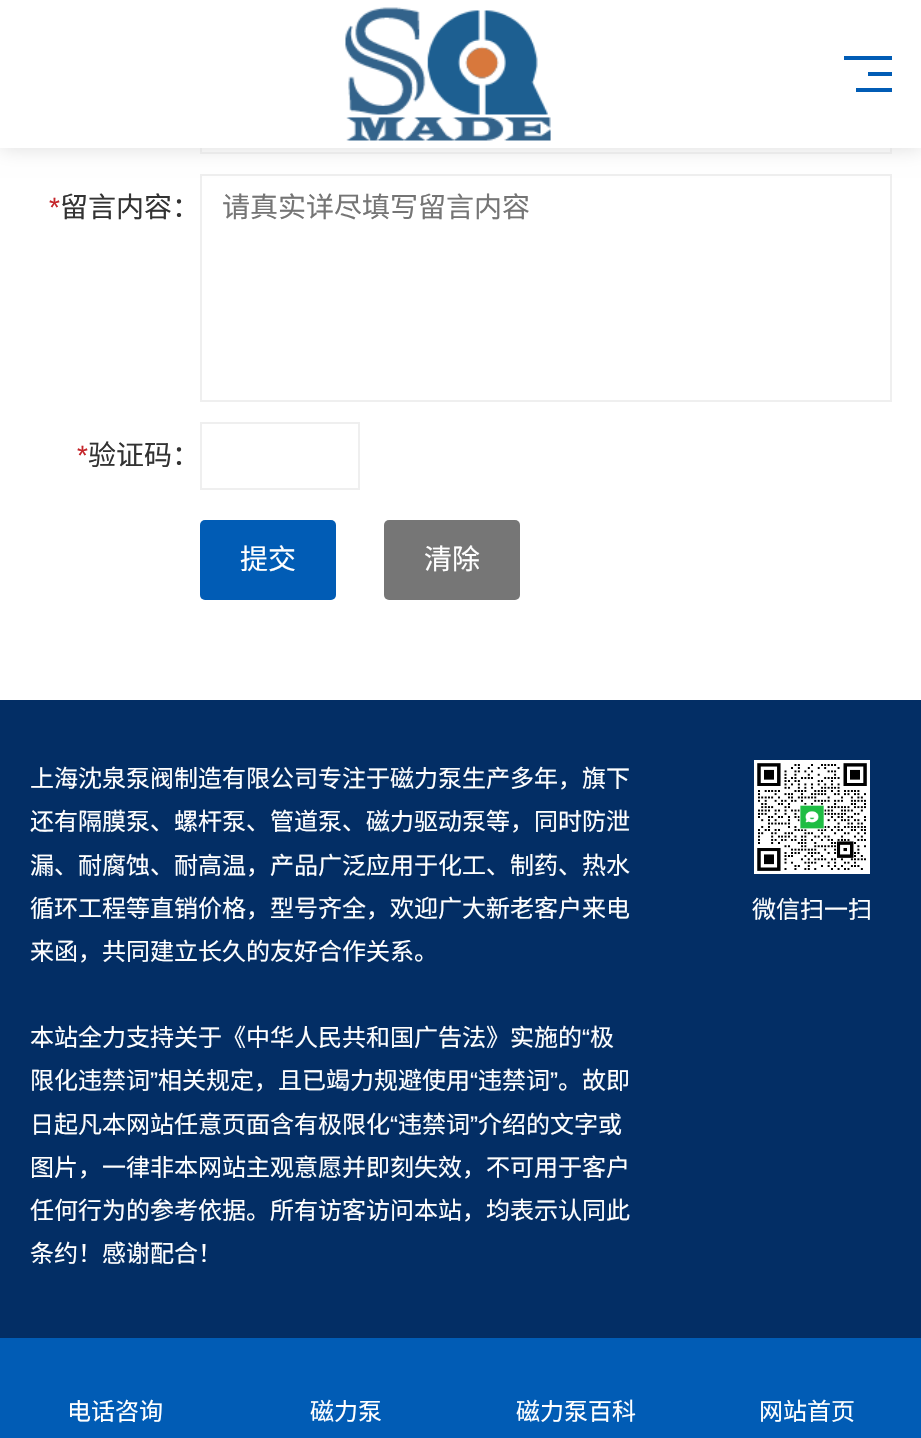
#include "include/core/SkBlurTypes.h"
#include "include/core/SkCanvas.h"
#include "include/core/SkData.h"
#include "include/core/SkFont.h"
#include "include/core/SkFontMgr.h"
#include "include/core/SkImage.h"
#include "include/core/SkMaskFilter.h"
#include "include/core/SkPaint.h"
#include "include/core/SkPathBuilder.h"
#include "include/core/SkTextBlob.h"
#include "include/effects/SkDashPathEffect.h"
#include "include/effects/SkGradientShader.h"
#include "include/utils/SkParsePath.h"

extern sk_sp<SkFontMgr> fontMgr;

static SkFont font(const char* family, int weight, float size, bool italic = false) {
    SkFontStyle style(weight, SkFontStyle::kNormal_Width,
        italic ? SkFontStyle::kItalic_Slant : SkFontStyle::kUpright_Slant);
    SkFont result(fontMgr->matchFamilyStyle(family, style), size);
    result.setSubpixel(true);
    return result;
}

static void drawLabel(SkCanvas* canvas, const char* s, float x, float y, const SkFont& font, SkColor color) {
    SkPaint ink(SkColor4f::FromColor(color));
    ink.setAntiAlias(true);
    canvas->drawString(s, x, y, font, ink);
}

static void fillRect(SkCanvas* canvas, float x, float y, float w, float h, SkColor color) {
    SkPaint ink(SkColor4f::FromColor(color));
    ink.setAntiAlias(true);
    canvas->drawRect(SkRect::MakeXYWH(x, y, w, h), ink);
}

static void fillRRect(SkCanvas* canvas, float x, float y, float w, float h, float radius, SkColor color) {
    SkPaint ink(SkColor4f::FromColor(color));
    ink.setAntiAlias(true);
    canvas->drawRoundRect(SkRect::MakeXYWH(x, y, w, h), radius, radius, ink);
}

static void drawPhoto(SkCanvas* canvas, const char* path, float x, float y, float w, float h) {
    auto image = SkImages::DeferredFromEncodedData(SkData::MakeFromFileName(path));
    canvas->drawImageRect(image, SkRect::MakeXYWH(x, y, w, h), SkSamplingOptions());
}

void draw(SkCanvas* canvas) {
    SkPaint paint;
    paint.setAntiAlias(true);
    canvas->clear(0xFFFFFFFF);
    paint.setStroke(true);
    paint.setStrokeWidth(2);
    paint.setColor(0xFFEFEFEF);
    canvas->drawRect(SkRect::MakeXYWH(201, 87, 690, 66), paint);
    canvas->drawRect(SkRect::MakeXYWH(201, 175, 690, 226), paint);
    paint.setStroke(false);
    paint.setColor(0xFFDDDDDD);
    paint.setMaskFilter(SkMaskFilter::MakeBlur(kNormal_SkBlurStyle, 10));
    canvas->drawRect(SkRect::MakeXYWH(0, 0, 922, 148), paint);
    paint.setMaskFilter(nullptr);
    fillRect(canvas, 0, 0, 921, 148, 0xFFFFFFFF);
    drawPhoto(canvas, "assets/img1.png", 345, 7, 206, 134);
    fillRect(canvas, 844, 56, 48, 4, 0xFF015CB5);
    fillRect(canvas, 868, 72, 24, 4, 0xFF015CB5);
    fillRect(canvas, 856, 88, 36, 4, 0xFF015CB5);
    SkFont font1 = font("Liberation Sans", 400, 28);
    drawLabel(canvas, "*", 49, 217, font1, 0xFFC5262B);
    SkFont font2 = font("Noto Sans CJK SC", 400, 28);
    drawLabel(canvas, "留言内容：", 60, 217, font2, 0xFF333333);
    drawLabel(canvas, "请真实详尽填写留言内容", 222, 217, font2, 0xFF757575);
    drawLabel(canvas, "*", 77, 465, font1, 0xFFC5262B);
    drawLabel(canvas, "验证码：", 88, 465, font2, 0xFF333333);
    paint.setStroke(true);
    paint.setColor(0xFFEFEFEF);
    canvas->drawRect(SkRect::MakeXYWH(201, 423, 158, 66), paint);
    fillRRect(canvas, 200, 520, 136, 80, 5, 0xFF015CB5);
    drawLabel(canvas, "提交", 240, 569, font2, 0xFFFFFFFF);
    fillRRect(canvas, 384, 520, 136, 80, 5, 0xFF767676);
    drawLabel(canvas, "清除", 424, 569, font2, 0xFFFFFFFF);
    fillRect(canvas, 0, 700, 921, 638, 0xFF032E65);
    SkFont font3 = font("Noto Sans CJK SC", 400, 24);
    drawLabel(canvas, "上海沈泉泵阀制造有限公司专注于磁力泵生产多年，旗下", 30, 787, font3, 0xFFFFFFFF);
    drawLabel(canvas, "还有隔膜泵、螺杆泵、管道泵、磁力驱动泵等，同时防泄", 30, 830, font3, 0xFFFFFFFF);
    drawLabel(canvas, "漏、耐腐蚀、耐高温，产品广泛应用于化工、制药、热水", 30, 874, font3, 0xFFFFFFFF);
    drawLabel(canvas, "循环工程等直销价格，型号齐全，欢迎广大新老客户来电", 30, 917, font3, 0xFFFFFFFF);
    drawLabel(canvas, "来函，共同建立长久的友好合作关系。", 30, 960, font3, 0xFFFFFFFF);
    drawLabel(canvas, "本站全力支持关于《中华人民共和国广告法》实施的", 30, 1046, font3, 0xFFFFFFFF);
    SkFont font4 = font("Liberation Sans", 400, 24);
    drawLabel(canvas, "“", 582, 1046, font4, 0xFFFFFFFF);
    drawLabel(canvas, "极", 590, 1046, font3, 0xFFFFFFFF);
    drawLabel(canvas, "限化违禁词", 30, 1089, font3, 0xFFFFFFFF);
    drawLabel(canvas, "”", 150, 1089, font4, 0xFFFFFFFF);
    drawLabel(canvas, "相关规定，且已竭力规避使用", 158, 1089, font3, 0xFFFFFFFF);
    drawLabel(canvas, "“", 470, 1089, font4, 0xFFFFFFFF);
    drawLabel(canvas, "违禁词", 478, 1089, font3, 0xFFFFFFFF);
    drawLabel(canvas, "”", 550, 1089, font4, 0xFFFFFFFF);
    drawLabel(canvas, "。故即", 558, 1089, font3, 0xFFFFFFFF);
    drawLabel(canvas, "日起凡本网站任意页面含有极限化", 30, 1133, font3, 0xFFFFFFFF);
    drawLabel(canvas, "“", 390, 1133, font4, 0xFFFFFFFF);
    drawLabel(canvas, "违禁词", 398, 1133, font3, 0xFFFFFFFF);
    drawLabel(canvas, "”", 470, 1133, font4, 0xFFFFFFFF);
    drawLabel(canvas, "介绍的文字或", 478, 1133, font3, 0xFFFFFFFF);
    drawLabel(canvas, "图片，一律非本网站主观意愿并即刻失效，不可用于客户", 30, 1176, font3, 0xFFFFFFFF);
    drawLabel(canvas, "任何行为的参考依据。所有访客访问本站，均表示认同此", 30, 1219, font3, 0xFFFFFFFF);
    drawLabel(canvas, "条约！感谢配合！", 30, 1262, font3, 0xFFFFFFFF);
    drawPhoto(canvas, "assets/img2.png", 754, 760, 116, 114);
    drawLabel(canvas, "微信扫一扫", 752, 918, font3, 0xFFFFFFFF);
    fillRect(canvas, 0, 1338, 921, 100, 0xFF015CB5);
    drawLabel(canvas, "电话咨询", 67, 1420, font3, 0xFFFFFFFF);
    drawLabel(canvas, "磁力泵", 310, 1420, font3, 0xFFFFFFFF);
    drawLabel(canvas, "磁力泵百科", 516, 1420, font3, 0xFFFFFFFF);
    drawLabel(canvas, "网站首页", 759, 1420, font3, 0xFFFFFFFF);
}
